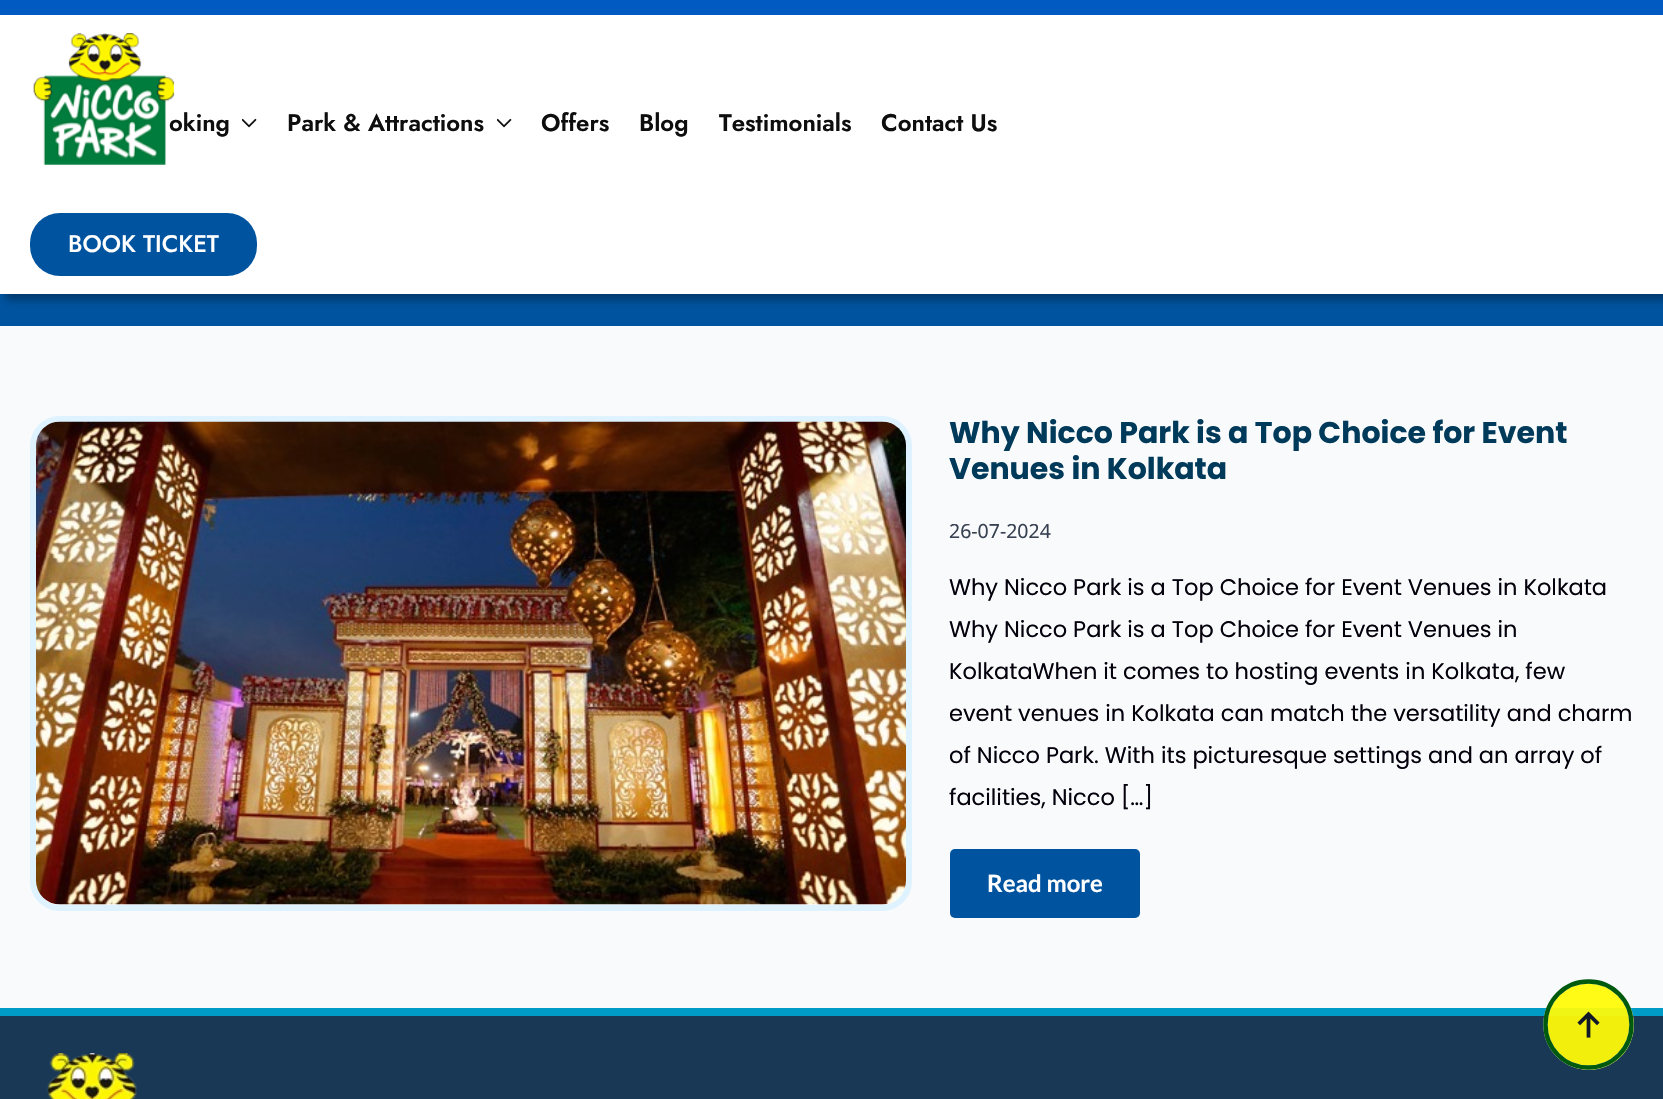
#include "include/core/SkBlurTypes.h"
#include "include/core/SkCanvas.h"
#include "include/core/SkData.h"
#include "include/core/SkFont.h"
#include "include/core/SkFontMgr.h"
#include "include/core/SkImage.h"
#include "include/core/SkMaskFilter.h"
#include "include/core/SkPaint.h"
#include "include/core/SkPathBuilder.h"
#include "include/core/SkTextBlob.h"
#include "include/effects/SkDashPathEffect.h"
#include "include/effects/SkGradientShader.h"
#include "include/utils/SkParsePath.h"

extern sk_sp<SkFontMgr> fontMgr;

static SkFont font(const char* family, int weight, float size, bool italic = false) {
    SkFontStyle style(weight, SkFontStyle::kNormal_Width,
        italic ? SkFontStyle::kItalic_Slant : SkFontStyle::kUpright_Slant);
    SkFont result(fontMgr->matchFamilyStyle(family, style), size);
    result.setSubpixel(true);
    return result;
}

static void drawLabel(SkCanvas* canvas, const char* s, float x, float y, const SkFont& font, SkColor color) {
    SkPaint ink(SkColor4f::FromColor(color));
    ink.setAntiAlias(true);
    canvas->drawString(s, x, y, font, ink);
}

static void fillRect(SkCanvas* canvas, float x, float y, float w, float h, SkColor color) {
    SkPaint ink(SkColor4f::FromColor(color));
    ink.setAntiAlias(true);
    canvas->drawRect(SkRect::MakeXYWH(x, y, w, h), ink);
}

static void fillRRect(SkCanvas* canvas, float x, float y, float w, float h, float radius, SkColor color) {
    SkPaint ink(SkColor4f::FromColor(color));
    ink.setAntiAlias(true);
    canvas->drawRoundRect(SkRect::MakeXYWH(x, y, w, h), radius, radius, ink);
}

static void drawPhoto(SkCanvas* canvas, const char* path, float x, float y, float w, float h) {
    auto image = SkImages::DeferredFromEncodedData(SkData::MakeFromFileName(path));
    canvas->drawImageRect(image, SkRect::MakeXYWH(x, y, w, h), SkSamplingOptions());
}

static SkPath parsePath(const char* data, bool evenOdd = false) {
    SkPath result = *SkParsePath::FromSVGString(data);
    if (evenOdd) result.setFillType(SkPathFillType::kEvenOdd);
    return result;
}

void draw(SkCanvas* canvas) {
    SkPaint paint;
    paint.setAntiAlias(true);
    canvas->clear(0xFFF9FAFB);
    fillRect(canvas, 0, 294, 1663, 32, 0xFF00539F);
    paint.setColor(0x52000000);
    paint.setMaskFilter(SkMaskFilter::MakeBlur(kNormal_SkBlurStyle, 4));
    canvas->drawRect(SkRect::MakeXYWH(6, 6, 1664, 294), paint);
    paint.setMaskFilter(nullptr);
    fillRect(canvas, 0, 15, 1663, 279, 0xFFFFFFFF);
    fillRect(canvas, 0, 0, 1663, 15, 0xFF005AC1);
    SkFont font1 = font("Jost", 600, 24);
    drawLabel(canvas, "oking", 169, 131, font1, 0xFF0E0E0E);
    drawPhoto(canvas, "assets/img1.png", 33, 33, 142, 132);
    drawPhoto(canvas, "assets/img2.png", 242, 118, 15, 10);
    drawLabel(canvas, "Park & Attractions", 287, 131, font1, 0xFF0E0E0E);
    drawPhoto(canvas, "assets/img2.png", 497, 118, 15, 10);
    drawLabel(canvas, "Offers", 541, 131, font1, 0xFF0E0E0E);
    drawLabel(canvas, "Blog", 639, 131, font1, 0xFF0E0E0E);
    drawLabel(canvas, "Testimonials", 719, 131, font1, 0xFF0E0E0E);
    drawLabel(canvas, "Contact Us", 881, 131, font1, 0xFF0E0E0E);
    fillRRect(canvas, 30, 213, 227, 63, 30, 0xFF00539F);
    SkFont font2 = font("Jost", 500, 24);
    drawLabel(canvas, "BOOK TICKET", 68, 252, font2, 0xFFFFFFFF);
    paint.setStroke(true);
    paint.setStrokeWidth(6);
    paint.setColor(0xFFDEF3FF);
    canvas->drawRoundRect(SkRect::MakeXYWH(33, 419, 876, 489), 27, 27, paint);
    drawPhoto(canvas, "assets/img3.png", 36, 421, 870, 484);
    SkFont font3 = font("Poppins", 700, 30);
    drawLabel(canvas, "Why Nicco Park is a Top Choice for Event", 949, 443, font3, 0xFF003A5A);
    drawLabel(canvas, "Venues in Kolkata", 949, 479, font3, 0xFF003A5A);
    SkFont font4 = font("Noto Sans", 400, 19.5f);
    drawLabel(canvas, "26-07-2024", 949, 538, font4, 0xFF374151);
    SkFont font5 = font("Poppins", 400, 22.5f);
    drawLabel(canvas, "Why Nicco Park is a Top Choice for Event Venues in Kolkata", 949, 595, font5, 0xFF04000C);
    drawLabel(canvas, "Why Nicco Park is a Top Choice for Event Venues in", 949, 637, font5, 0xFF04000C);
    drawLabel(canvas, "KolkataWhen it comes to hosting events in Kolkata, few", 949, 679, font5, 0xFF04000C);
    drawLabel(canvas, "event venues in Kolkata can match the versatility and charm", 949, 721, font5, 0xFF04000C);
    drawLabel(canvas, "of Nicco Park. With its picturesque settings and an array of", 949, 763, font5, 0xFF04000C);
    drawLabel(canvas, "facilities, Nicco […]", 949, 805, font5, 0xFF04000C);
    fillRRect(canvas, 950, 849, 190, 69, 5, 0xFF00539F);
    SkFont font6 = font("Lato", 700, 24);
    drawLabel(canvas, "Read more", 987, 892, font6, 0xFFFFFFFF);
    fillRect(canvas, 0, 1008, 1663, 8, 0xFF009BC7);
    fillRect(canvas, 0, 1016, 1663, 83, 0xFF193856);
    paint.setStroke(false);
    paint.setColor(0xF0FFFA07);
    canvas->drawCircle(1589, 1025, 45, paint);
    drawPhoto(canvas, "assets/img4.png", 1577, 1011, 23, 27);
    paint.setStroke(true);
    paint.setStrokeWidth(4.4f);
    paint.setStrokeCap(SkPaint::kRound_Cap);
    paint.setColor(0xFFE5E7EB);
    canvas->drawPath(parsePath("M1588.5 981.5C1612.5 981.5 1631.5 1000.5 1631.5 1024.5C1631.5 1048.5 1612.5 1067.5 1588.5 1067.5C1564.5 1067.5 1545.5 1048.5 1545.5 1024.5C1545.5 1000.5 1564.5 981.5 1588.5 981.5"), paint);
    paint.setColor(0xFF005A0E);
    canvas->drawPath(parsePath("M1588.5 981.5C1612.5 981.5 1631.5 1000.5 1631.5 1024.5C1631.5 1048.5 1612.5 1067.5 1588.5 1067.5C1564.5 1067.5 1545.5 1048.5 1545.5 1024.5C1545.5 1000.5 1564.5 981.5 1588.5 981.5"), paint);
    drawPhoto(canvas, "assets/img5.png", 46, 1053, 91, 46);
}
